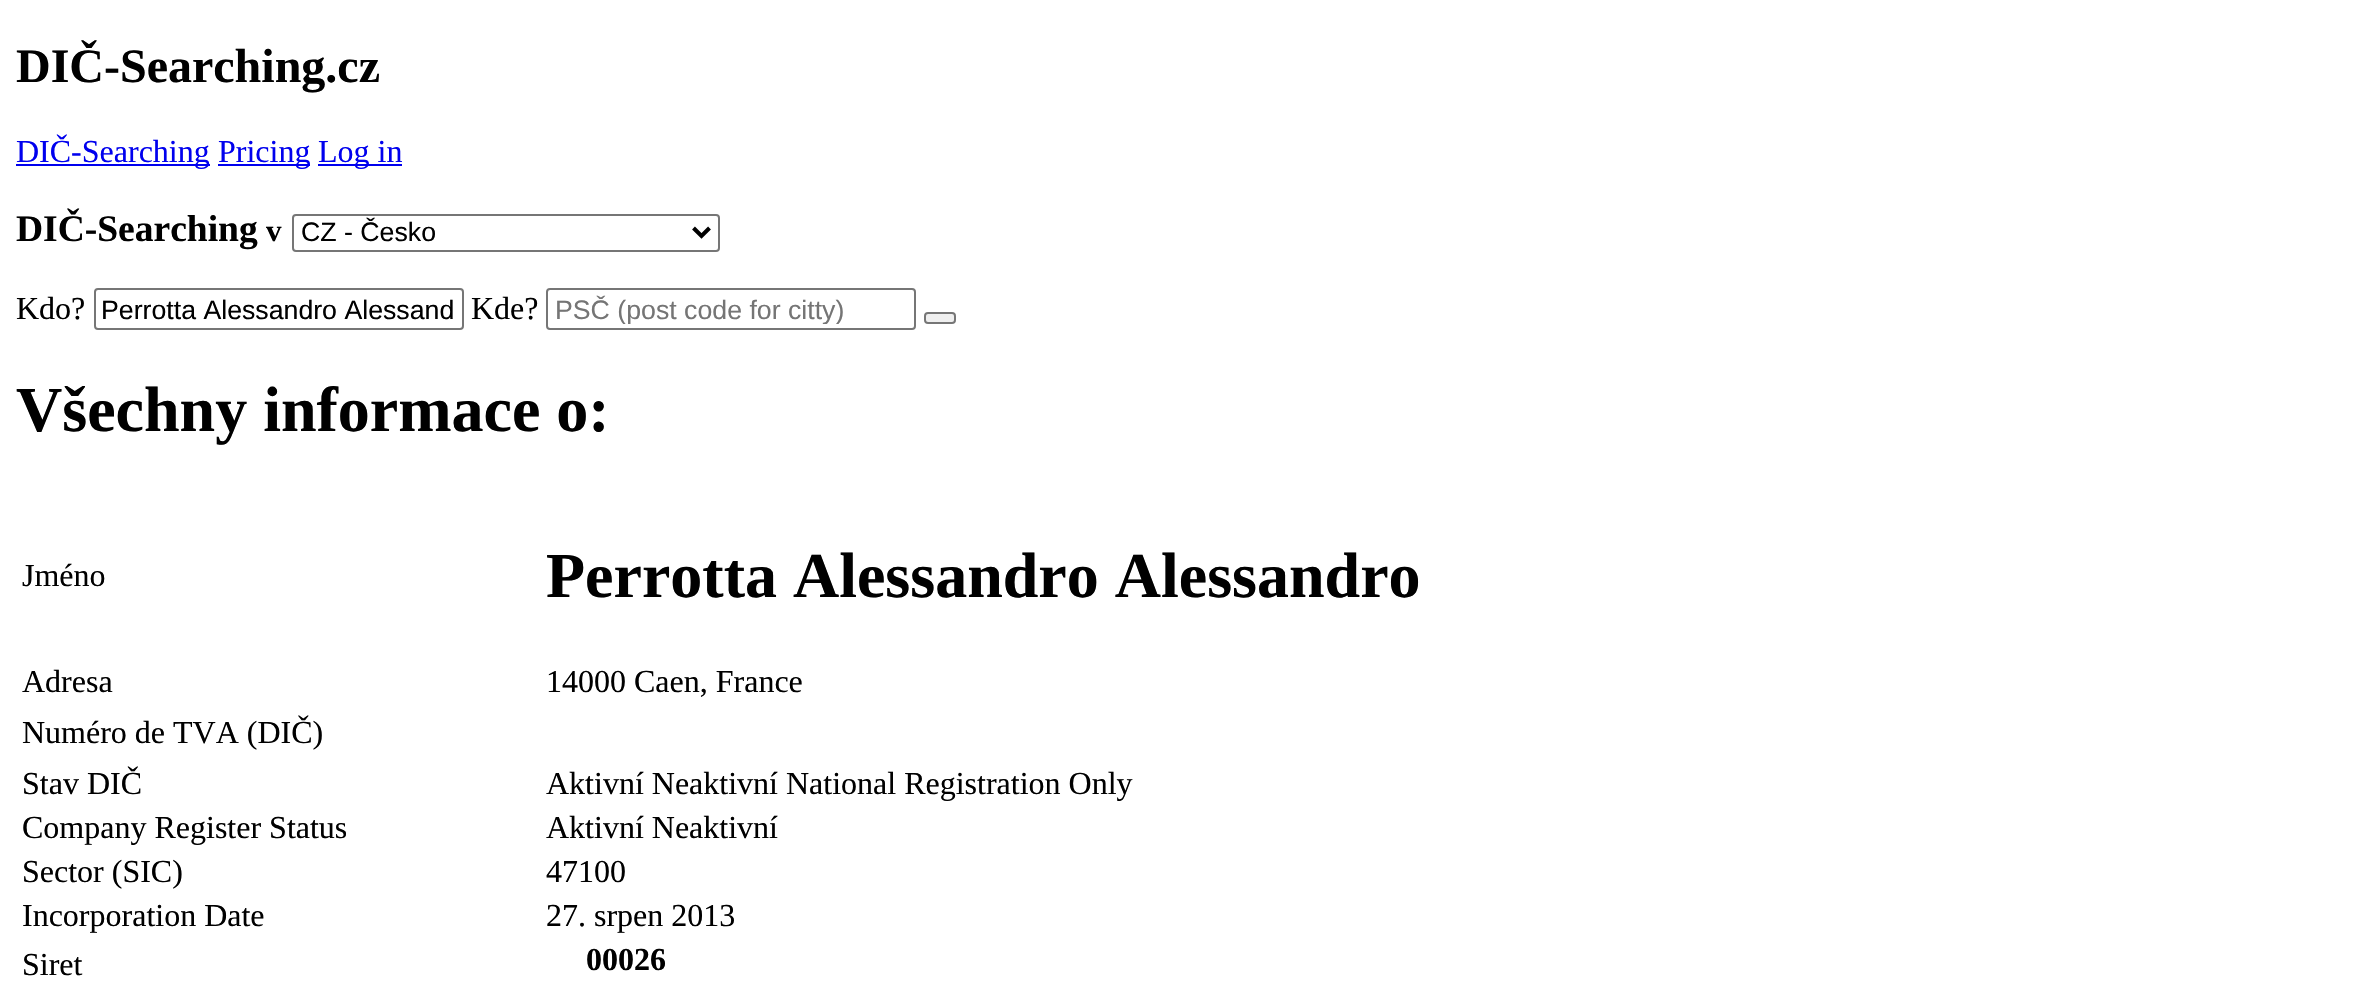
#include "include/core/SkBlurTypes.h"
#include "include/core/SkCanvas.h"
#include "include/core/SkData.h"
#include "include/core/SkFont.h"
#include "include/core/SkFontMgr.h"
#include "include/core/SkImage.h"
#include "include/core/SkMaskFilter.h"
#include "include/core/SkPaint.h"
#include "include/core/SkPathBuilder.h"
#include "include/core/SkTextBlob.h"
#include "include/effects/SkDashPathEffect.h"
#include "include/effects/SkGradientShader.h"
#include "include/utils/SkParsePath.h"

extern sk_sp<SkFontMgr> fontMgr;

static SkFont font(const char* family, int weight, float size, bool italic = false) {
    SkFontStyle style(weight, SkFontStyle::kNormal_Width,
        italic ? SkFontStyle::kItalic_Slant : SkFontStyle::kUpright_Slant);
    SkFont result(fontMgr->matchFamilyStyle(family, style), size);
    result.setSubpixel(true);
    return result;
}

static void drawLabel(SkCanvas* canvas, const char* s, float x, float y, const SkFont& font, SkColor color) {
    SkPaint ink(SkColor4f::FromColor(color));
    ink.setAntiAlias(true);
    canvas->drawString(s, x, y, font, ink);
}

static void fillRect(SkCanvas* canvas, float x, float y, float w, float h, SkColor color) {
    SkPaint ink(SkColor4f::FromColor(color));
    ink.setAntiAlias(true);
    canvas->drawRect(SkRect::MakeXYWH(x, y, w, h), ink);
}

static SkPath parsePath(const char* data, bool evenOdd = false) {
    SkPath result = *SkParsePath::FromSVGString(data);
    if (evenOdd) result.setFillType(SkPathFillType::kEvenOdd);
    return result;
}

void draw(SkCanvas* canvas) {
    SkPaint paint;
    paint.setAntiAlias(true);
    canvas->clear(0xFFFFFFFF);
    SkFont font1 = font("Liberation Serif", 700, 48);
    drawLabel(canvas, "DIČ-Searching.cz", 16, 82, font1, 0xFF000000);
    fillRect(canvas, 16, 164, 194, 2, 0xFF0000EE);
    SkFont font2 = font("Liberation Serif", 400, 32);
    drawLabel(canvas, "DIČ-Searching", 16, 162, font2, 0xFF0000EE);
    fillRect(canvas, 218, 164, 92, 2, 0xFF0000EE);
    drawLabel(canvas, "Pricing", 218, 162, font2, 0xFF0000EE);
    fillRect(canvas, 318, 164, 84, 2, 0xFF0000EE);
    drawLabel(canvas, "Log in", 318, 162, font2, 0xFF0000EE);
    SkFont font3 = font("Liberation Serif", 700, 37.5f);
    drawLabel(canvas, "DIČ-Searching", 16, 241, font3, 0xFF000000);
    SkFont font4 = font("Liberation Serif", 700, 31);
    drawLabel(canvas, "v", 266, 241, font4, 0xFF000000);
    paint.setStroke(true);
    paint.setStrokeWidth(2);
    paint.setColor(0xFF767676);
    canvas->drawRoundRect(SkRect::MakeXYWH(293, 215, 426, 36), 3, 3, paint);
    paint.setStrokeWidth(4);
    paint.setColor(0xFF000000);
    canvas->drawPath(parsePath("M693.5 228L701.5 236L709.5 228"), paint);
    SkFont font5 = font("Liberation Sans", 400, 26.7f);
    drawLabel(canvas, "CZ - Česko", 301, 241, font5, 0xFF000000);
    drawLabel(canvas, "Kdo?", 16, 319, font2, 0xFF000000);
    paint.setStrokeWidth(2);
    paint.setColor(0xFF767676);
    canvas->drawRoundRect(SkRect::MakeXYWH(95, 289, 368, 40), 3, 3, paint);
    drawLabel(canvas, "Perrotta Alessandro Alessand", 101, 319, font5, 0xFF000000);
    drawLabel(canvas, "Kde?", 471, 319, font2, 0xFF000000);
    canvas->drawRoundRect(SkRect::MakeXYWH(547, 289, 368, 40), 3, 3, paint);
    canvas->save();
    canvas->clipRect(SkRect::MakeXYWH(554, 294, 354, 30));
    drawLabel(canvas, "PSČ (post code for citty)", 555, 319, font5, 0xFF757575);
    canvas->restore();
    paint.setStroke(false);
    paint.setColor(0xFFEFEFEF);
    canvas->drawRoundRect(SkRect::MakeXYWH(925, 313, 30, 10), 3, 3, paint);
    paint.setStroke(true);
    paint.setColor(0xFF767676);
    canvas->drawRoundRect(SkRect::MakeXYWH(925, 313, 30, 10), 3, 3, paint);
    SkFont font6 = font("Liberation Serif", 700, 64);
    drawLabel(canvas, "Všechny informace o:", 16, 431, font6, 0xFF000000);
    drawLabel(canvas, "Jméno", 22, 586, font2, 0xFF000000);
    drawLabel(canvas, "Perrotta Alessandro Alessandro", 546, 597, font6, 0xFF000000);
    drawLabel(canvas, "Adresa", 22, 692, font2, 0xFF000000);
    drawLabel(canvas, "14000 Caen, France", 546, 692, font2, 0xFF000000);
    drawLabel(canvas, "Numéro de TVA (DIČ)", 22, 743, font2, 0xFF000000);
    drawLabel(canvas, "Stav DIČ", 22, 794, font2, 0xFF000000);
    drawLabel(canvas, "Aktivní Neaktivní National Registration Only", 546, 794, font2, 0xFF000000);
    drawLabel(canvas, "Company Register Status", 22, 838, font2, 0xFF000000);
    drawLabel(canvas, "Aktivní Neaktivní", 546, 838, font2, 0xFF000000);
    drawLabel(canvas, "Sector (SIC)", 22, 882, font2, 0xFF000000);
    drawLabel(canvas, "47100", 546, 882, font2, 0xFF000000);
    drawLabel(canvas, "Incorporation Date", 22, 926, font2, 0xFF000000);
    drawLabel(canvas, "27. srpen 2013", 546, 926, font2, 0xFF000000);
    drawLabel(canvas, "Siret", 22, 975, font2, 0xFF000000);
    SkFont font7 = font("Liberation Serif", 700, 32);
    drawLabel(canvas, "00026", 586, 970, font7, 0xFF000000);
}
